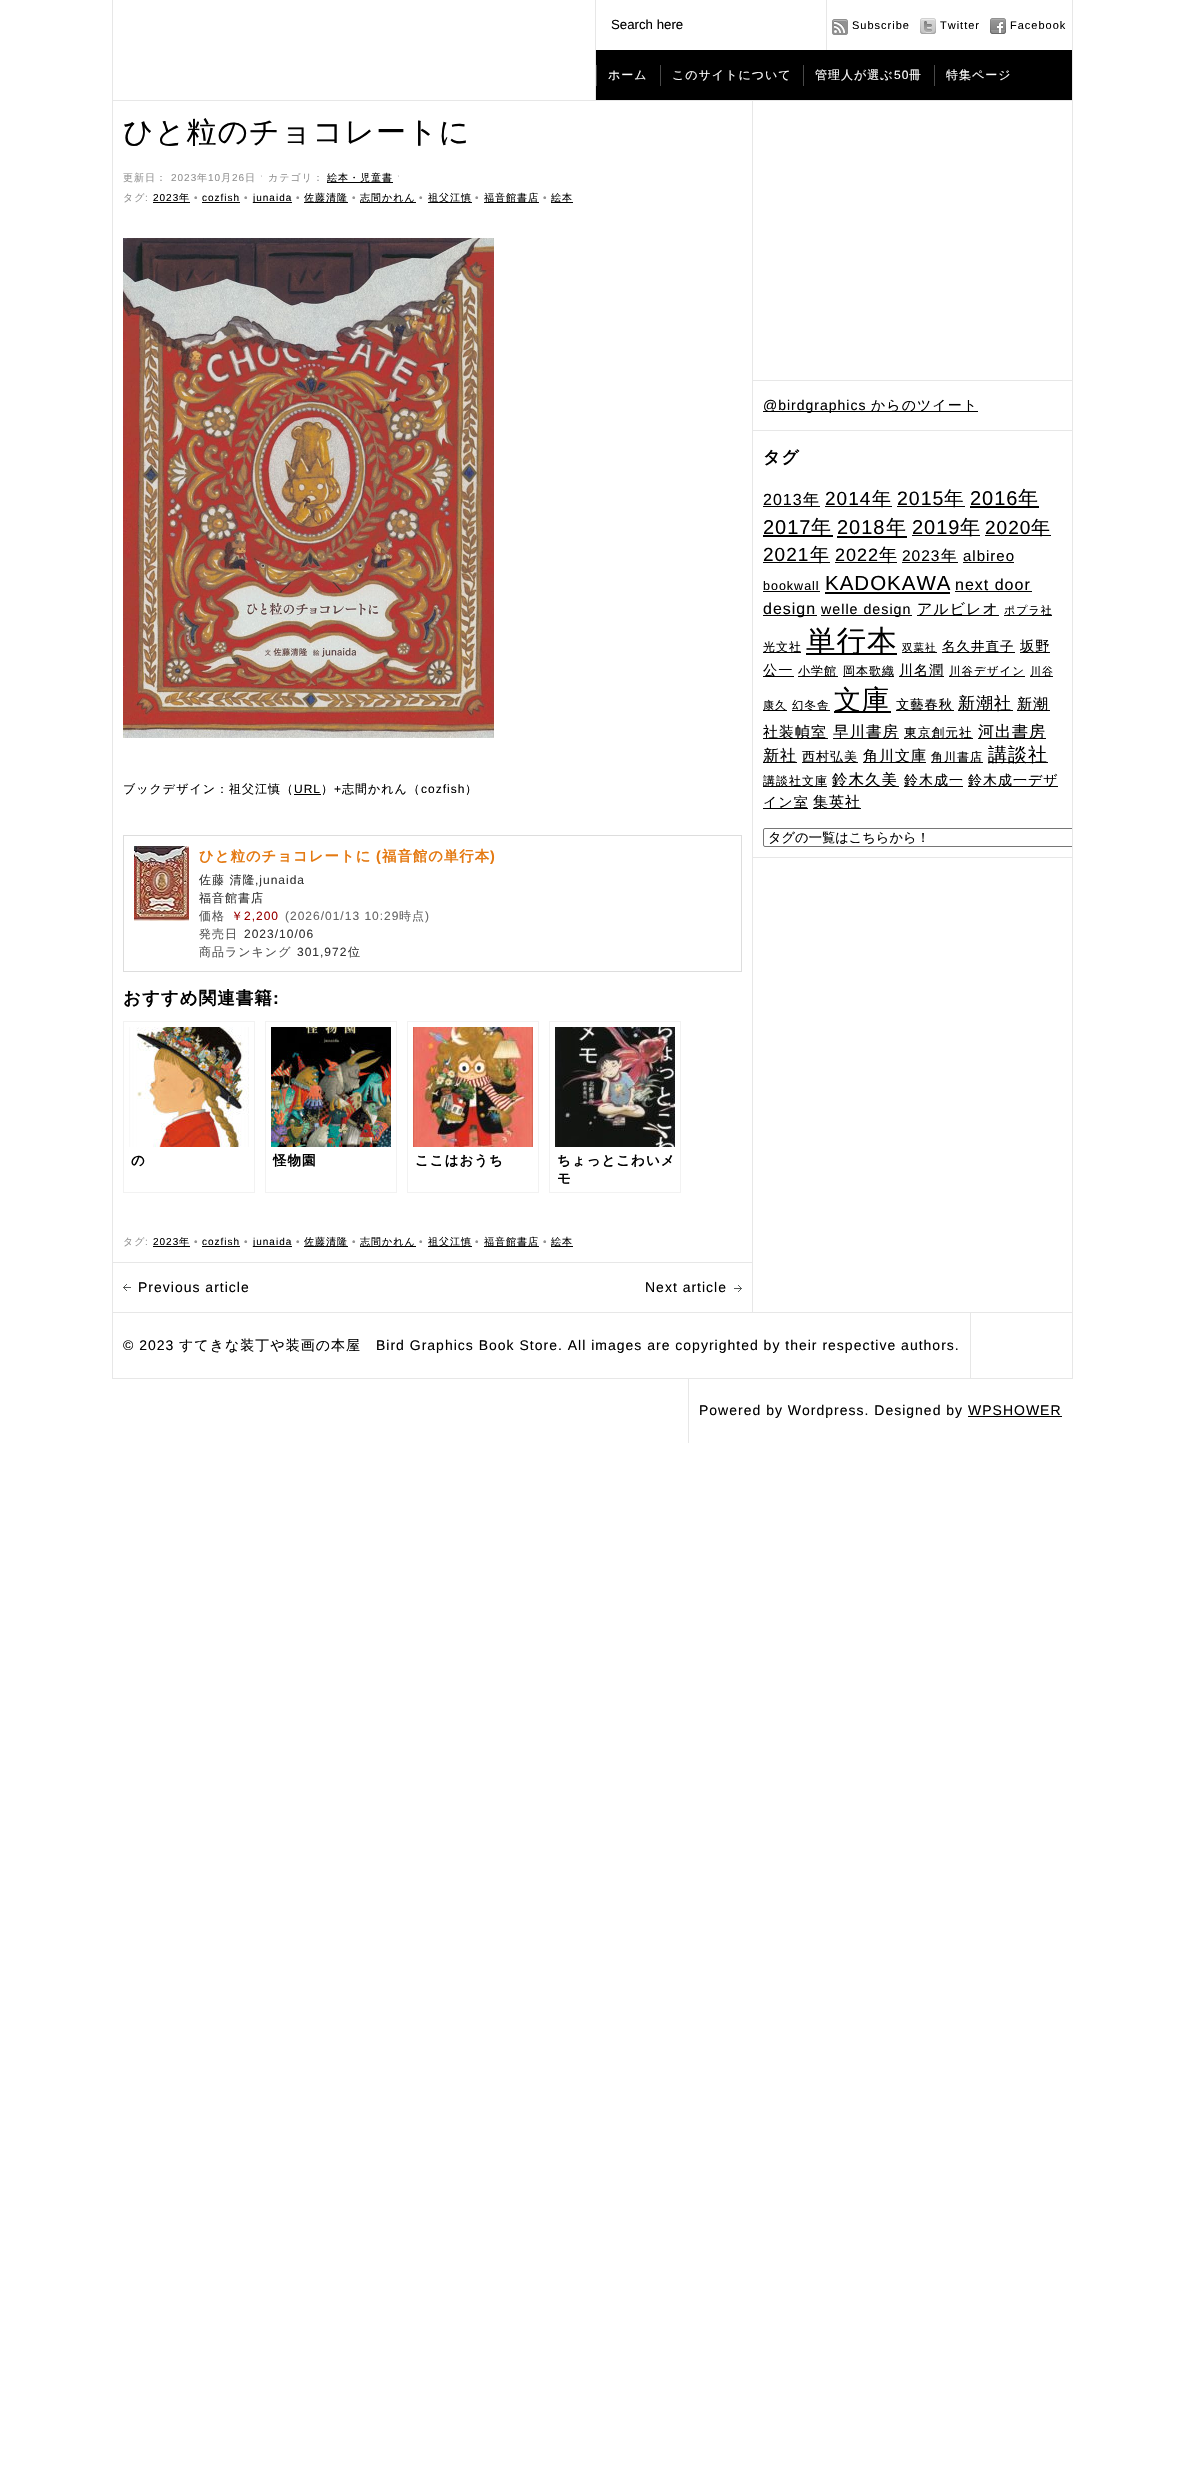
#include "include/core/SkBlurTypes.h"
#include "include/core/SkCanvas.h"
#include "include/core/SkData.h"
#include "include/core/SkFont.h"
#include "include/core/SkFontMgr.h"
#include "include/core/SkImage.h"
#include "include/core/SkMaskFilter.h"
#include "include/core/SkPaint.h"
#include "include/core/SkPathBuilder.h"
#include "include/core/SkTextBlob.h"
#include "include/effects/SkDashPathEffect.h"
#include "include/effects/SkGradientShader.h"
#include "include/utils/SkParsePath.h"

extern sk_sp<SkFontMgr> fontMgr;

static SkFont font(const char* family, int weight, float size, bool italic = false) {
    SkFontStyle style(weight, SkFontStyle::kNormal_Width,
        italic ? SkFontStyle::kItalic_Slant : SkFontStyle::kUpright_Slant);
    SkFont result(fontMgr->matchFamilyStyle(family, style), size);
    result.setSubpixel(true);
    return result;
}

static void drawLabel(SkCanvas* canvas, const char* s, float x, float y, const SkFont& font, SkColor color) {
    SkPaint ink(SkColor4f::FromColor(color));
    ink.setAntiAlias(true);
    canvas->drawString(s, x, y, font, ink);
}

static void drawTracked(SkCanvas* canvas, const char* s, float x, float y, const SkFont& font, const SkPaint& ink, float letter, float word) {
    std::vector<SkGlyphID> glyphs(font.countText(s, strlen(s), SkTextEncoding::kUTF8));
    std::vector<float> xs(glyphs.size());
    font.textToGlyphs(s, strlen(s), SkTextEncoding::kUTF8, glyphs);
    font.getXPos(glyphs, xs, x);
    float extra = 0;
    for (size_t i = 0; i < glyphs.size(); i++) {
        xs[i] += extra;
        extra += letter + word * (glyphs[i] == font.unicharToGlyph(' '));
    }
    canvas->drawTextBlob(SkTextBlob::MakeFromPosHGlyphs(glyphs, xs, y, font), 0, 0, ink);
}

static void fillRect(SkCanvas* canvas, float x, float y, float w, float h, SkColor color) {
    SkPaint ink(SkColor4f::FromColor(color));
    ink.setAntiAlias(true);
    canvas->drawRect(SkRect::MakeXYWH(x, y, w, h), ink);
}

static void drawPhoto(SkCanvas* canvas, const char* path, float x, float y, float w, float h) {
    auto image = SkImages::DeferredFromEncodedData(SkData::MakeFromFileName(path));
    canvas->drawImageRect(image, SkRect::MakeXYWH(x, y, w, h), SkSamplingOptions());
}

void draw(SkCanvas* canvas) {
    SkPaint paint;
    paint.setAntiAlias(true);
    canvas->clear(0xFFFFFFFF);
    fillRect(canvas, 1072, 0, 1, 1379, 0xFFE7E7E7);
    fillRect(canvas, 112, 1378, 961, 1, 0xFFE7E7E7);
    fillRect(canvas, 112, 0, 1, 1379, 0xFFE7E7E7);
    fillRect(canvas, 753, 100, 319, 1, 0xFFE7E7E7);
    fillRect(canvas, 595, 0, 1, 100, 0xFFE7E7E7);
    fillRect(canvas, 826, 0, 1, 50, 0xFFE7E7E7);
    SkFont font1 = font("Liberation Sans", 400, 13.25f);
    drawLabel(canvas, "Search here", 611, 29, font1, 0xFF000000);
    drawPhoto(canvas, "assets/img1.png", 832, 19, 16, 16);
    SkFont font2 = font("Liberation Sans", 400, 11);
    paint.setColor(0xFF000000);
    drawTracked(canvas, "Subscribe", 852, 29, font2, paint, 1, 0);
    drawPhoto(canvas, "assets/img2.png", 920, 18, 16, 16);
    drawTracked(canvas, "Twitter", 940, 29, font2, paint, 1, 0);
    drawPhoto(canvas, "assets/img3.png", 990, 18, 16, 16);
    drawTracked(canvas, "Facebook", 1010, 29, font2, paint, 1, 0);
    fillRect(canvas, 596, 50, 476, 50, 0xFF000000);
    fillRect(canvas, 596, 65, 1, 21, 0xFF494949);
    SkFont font3 = font("WenQuanYi Zen Hei", 500, 12);
    paint.setColor(0xFFFFFFFF);
    drawTracked(canvas, "ホーム", 608, 79, font3, paint, 1, 0);
    fillRect(canvas, 660, 65, 1, 21, 0xFF494949);
    drawTracked(canvas, "このサイトについて", 672, 79, font3, paint, 1, 0);
    fillRect(canvas, 803, 65, 1, 21, 0xFF494949);
    drawTracked(canvas, "管理人が選ぶ", 815, 79, font3, paint, 1, 0);
    SkFont font4 = font("Liberation Sans", 400, 12);
    drawTracked(canvas, "50", 894, 79, font4, paint, 1, 0);
    drawTracked(canvas, "冊", 909, 79, font3, paint, 1, 0);
    fillRect(canvas, 934, 65, 1, 21, 0xFF494949);
    drawTracked(canvas, "特集ページ", 946, 79, font3, paint, 1, 0);
    fillRect(canvas, 752, 100, 1, 1212, 0xFFE7E7E7);
    fillRect(canvas, 113, 100, 639, 1, 0xFFE7E7E7);
    fillRect(canvas, 113, 1262, 639, 1, 0xFFE7E7E7);
    SkFont font5 = font("WenQuanYi Zen Hei", 500, 30);
    paint.setColor(0xFF000000);
    drawTracked(canvas, "ひと粒のチョコレートに", 123, 142, font5, paint, 1, 0);
    SkFont font6 = font("WenQuanYi Zen Hei", 500, 10);
    paint.setColor(0xFF929292);
    drawTracked(canvas, "更新日：", 123, 181, font6, paint, 1, 0);
    SkFont font7 = font("Liberation Sans", 400, 10);
    drawTracked(canvas, "2023", 171, 181, font7, paint, 1, 0);
    drawTracked(canvas, "年", 197, 181, font6, paint, 1, 0);
    drawTracked(canvas, "10", 208, 181, font7, paint, 1, 0);
    drawTracked(canvas, "月", 221, 181, font6, paint, 1, 0);
    drawTracked(canvas, "26", 232, 181, font7, paint, 1, 0);
    drawTracked(canvas, "日", 245, 181, font6, paint, 1, 0);
    drawTracked(canvas, "ˑ", 260, 181, font7, paint, 1, 0);
    drawTracked(canvas, "カテゴリ：", 268, 181, font6, paint, 1, 0);
    fillRect(canvas, 327, 182, 66, 1, 0xFF000000);
    paint.setColor(0xFF000000);
    drawTracked(canvas, "絵本・児童書", 327, 181, font6, paint, 1, 0);
    paint.setColor(0xFF929292);
    drawTracked(canvas, "ˑ", 397, 181, font7, paint, 1, 0);
    drawTracked(canvas, "タグ", 123, 201, font6, paint, 1, 0);
    drawTracked(canvas, ":", 145, 201, font7, paint, 1, 0);
    paint.setColor(0xFF000000);
    drawTracked(canvas, "2023", 153, 201, font7, paint, 1, 0);
    fillRect(canvas, 153, 202, 37, 1, 0xFF000000);
    drawTracked(canvas, "年", 179, 201, font6, paint, 1, 0);
    paint.setColor(0xFF929292);
    drawTracked(canvas, "•", 194, 201, font7, paint, 1, 0);
    paint.setColor(0xFF000000);
    drawTracked(canvas, "cozfish", 202, 201, font7, paint, 1, 0);
    fillRect(canvas, 202, 202, 38, 1, 0xFF000000);
    paint.setColor(0xFF929292);
    drawTracked(canvas, "•", 244, 201, font7, paint, 1, 0);
    fillRect(canvas, 253, 202, 39, 1, 0xFF000000);
    paint.setColor(0xFF000000);
    drawTracked(canvas, "junaida", 253, 201, font7, paint, 1, 0);
    paint.setColor(0xFF929292);
    drawTracked(canvas, "•", 296, 201, font7, paint, 1, 0);
    fillRect(canvas, 304, 202, 44, 1, 0xFF000000);
    paint.setColor(0xFF000000);
    drawTracked(canvas, "佐藤清隆", 304, 201, font6, paint, 1, 0);
    paint.setColor(0xFF929292);
    drawTracked(canvas, "•", 352, 201, font7, paint, 1, 0);
    fillRect(canvas, 360, 202, 56, 1, 0xFF000000);
    paint.setColor(0xFF000000);
    drawTracked(canvas, "志間かれん", 360, 201, font6, paint, 1, 0);
    paint.setColor(0xFF929292);
    drawTracked(canvas, "•", 419, 201, font7, paint, 1, 0);
    fillRect(canvas, 428, 202, 44, 1, 0xFF000000);
    paint.setColor(0xFF000000);
    drawTracked(canvas, "祖父江慎", 428, 201, font6, paint, 1, 0);
    paint.setColor(0xFF929292);
    drawTracked(canvas, "•", 475, 201, font7, paint, 1, 0);
    fillRect(canvas, 484, 202, 55, 1, 0xFF000000);
    paint.setColor(0xFF000000);
    drawTracked(canvas, "福音館書店", 484, 201, font6, paint, 1, 0);
    paint.setColor(0xFF929292);
    drawTracked(canvas, "•", 543, 201, font7, paint, 1, 0);
    fillRect(canvas, 551, 202, 22, 1, 0xFF000000);
    paint.setColor(0xFF000000);
    drawTracked(canvas, "絵本", 551, 201, font6, paint, 1, 0);
    drawPhoto(canvas, "assets/img4.png", 123, 238, 371, 500);
    drawTracked(canvas, "ブックデザイン：祖父江慎（", 123, 793, font3, paint, 1, 0);
    drawTracked(canvas, "URL", 294, 793, font4, paint, 1, 0);
    fillRect(canvas, 294, 794, 27, 1, 0xFF000000);
    drawTracked(canvas, "）", 321, 793, font3, paint, 1, 0);
    drawTracked(canvas, "+", 334, 793, font4, paint, 1, 0);
    drawTracked(canvas, "志間かれん（", 342, 793, font3, paint, 1, 0);
    drawTracked(canvas, "cozfish", 421, 793, font4, paint, 1, 0);
    drawTracked(canvas, "）", 465, 793, font3, paint, 1, 0);
    paint.setStroke(true);
    paint.setStrokeWidth(1);
    paint.setColor(0xFFDDDDDD);
    canvas->drawRect(SkRect::MakeXYWH(123.5f, 835.5f, 618, 136), paint);
    drawPhoto(canvas, "assets/img5.png", 134, 846, 55, 75);
    SkFont font8 = font("WenQuanYi Zen Hei", 700, 14.4f);
    paint.setStroke(false);
    paint.setColor(0xFFE47911);
    drawTracked(canvas, "ひと粒のチョコレートに", 199, 861, font8, paint, 1, 0);
    SkFont font9 = font("Liberation Sans", 700, 14.4f);
    drawTracked(canvas, "(", 376, 861, font9, paint, 1, 0);
    drawTracked(canvas, "福音館の単行本", 382, 861, font8, paint, 1, 0);
    drawTracked(canvas, ")", 490, 861, font9, paint, 1, 0);
    paint.setColor(0xFF333333);
    drawTracked(canvas, "佐藤 清隆", 199, 884, font3, paint, 1, 0);
    drawTracked(canvas, ",junaida", 255, 884, font4, paint, 1, 0);
    drawTracked(canvas, "福音館書店", 199, 902, font3, paint, 1, 0);
    paint.setColor(0xFF555555);
    drawTracked(canvas, "価格", 199, 920, font3, paint, 1, 0);
    paint.setColor(0xFF990000);
    drawTracked(canvas, "￥", 231, 920, font3, paint, 1, 0);
    drawTracked(canvas, "2,200", 244, 920, font4, paint, 1, 0);
    paint.setColor(0xFF666666);
    drawTracked(canvas, "(2026/01/13 10:29", 285, 920, font4, paint, 1, 0);
    drawTracked(canvas, "時点", 399, 920, font3, paint, 1, 0);
    drawTracked(canvas, ")", 425, 920, font4, paint, 1, 0);
    paint.setColor(0xFF555555);
    drawTracked(canvas, "発売日", 199, 938, font3, paint, 1, 0);
    paint.setColor(0xFF333333);
    drawTracked(canvas, "2023/10/06", 244, 938, font4, paint, 1, 0);
    paint.setColor(0xFF555555);
    drawTracked(canvas, "商品ランキング", 199, 956, font3, paint, 1, 0);
    paint.setColor(0xFF333333);
    drawTracked(canvas, "301,972", 297, 956, font4, paint, 1, 0);
    drawTracked(canvas, "位", 348, 956, font3, paint, 1, 0);
    SkFont font10 = font("WenQuanYi Zen Hei", 700, 17.5f);
    paint.setColor(0xFF000000);
    drawTracked(canvas, "おすすめ関連書籍", 123, 1004, font10, paint, 1, 0);
    SkFont font11 = font("Liberation Sans", 700, 17.5f);
    drawTracked(canvas, ":", 273, 1004, font11, paint, 1, 0);
    paint.setStroke(true);
    paint.setColor(0xFFF2F2F2);
    canvas->drawRect(SkRect::MakeXYWH(123.5f, 1021.5f, 131, 171), paint);
    drawPhoto(canvas, "assets/img6.png", 129, 1027, 120, 120);
    SkFont font12 = font("WenQuanYi Zen Hei", 700, 13.5f);
    paint.setStroke(false);
    paint.setColor(0xFF000000);
    drawTracked(canvas, "の", 131, 1165, font12, paint, 1, 0);
    paint.setStroke(true);
    paint.setColor(0xFFF2F2F2);
    canvas->drawRect(SkRect::MakeXYWH(265.5f, 1021.5f, 131, 171), paint);
    drawPhoto(canvas, "assets/img7.png", 271, 1027, 120, 120);
    paint.setStroke(false);
    paint.setColor(0xFF000000);
    drawTracked(canvas, "怪物園", 273, 1165, font12, paint, 1, 0);
    paint.setStroke(true);
    paint.setColor(0xFFF2F2F2);
    canvas->drawRect(SkRect::MakeXYWH(407.5f, 1021.5f, 131, 171), paint);
    drawPhoto(canvas, "assets/img8.png", 413, 1027, 120, 120);
    paint.setStroke(false);
    paint.setColor(0xFF000000);
    drawTracked(canvas, "ここはおうち", 415, 1165, font12, paint, 1, 0);
    paint.setStroke(true);
    paint.setColor(0xFFF2F2F2);
    canvas->drawRect(SkRect::MakeXYWH(549.5f, 1021.5f, 131, 171), paint);
    drawPhoto(canvas, "assets/img9.png", 555, 1027, 120, 120);
    paint.setStroke(false);
    paint.setColor(0xFF000000);
    drawTracked(canvas, "ちょっとこわいメ", 557, 1165, font12, paint, 1, 0);
    drawTracked(canvas, "モ", 557, 1183, font12, paint, 1, 0);
    paint.setColor(0xFF929292);
    drawTracked(canvas, "タグ", 123, 1245, font6, paint, 1, 0);
    drawTracked(canvas, ":", 145, 1245, font7, paint, 1, 0);
    paint.setColor(0xFF000000);
    drawTracked(canvas, "2023", 153, 1245, font7, paint, 1, 0);
    fillRect(canvas, 153, 1246, 37, 1, 0xFF000000);
    drawTracked(canvas, "年", 179, 1245, font6, paint, 1, 0);
    paint.setColor(0xFF929292);
    drawTracked(canvas, "•", 194, 1245, font7, paint, 1, 0);
    paint.setColor(0xFF000000);
    drawTracked(canvas, "cozfish", 202, 1245, font7, paint, 1, 0);
    fillRect(canvas, 202, 1246, 38, 1, 0xFF000000);
    paint.setColor(0xFF929292);
    drawTracked(canvas, "•", 244, 1245, font7, paint, 1, 0);
    fillRect(canvas, 253, 1246, 39, 1, 0xFF000000);
    paint.setColor(0xFF000000);
    drawTracked(canvas, "junaida", 253, 1245, font7, paint, 1, 0);
    paint.setColor(0xFF929292);
    drawTracked(canvas, "•", 296, 1245, font7, paint, 1, 0);
    fillRect(canvas, 304, 1246, 44, 1, 0xFF000000);
    paint.setColor(0xFF000000);
    drawTracked(canvas, "佐藤清隆", 304, 1245, font6, paint, 1, 0);
    paint.setColor(0xFF929292);
    drawTracked(canvas, "•", 352, 1245, font7, paint, 1, 0);
    fillRect(canvas, 360, 1246, 56, 1, 0xFF000000);
    paint.setColor(0xFF000000);
    drawTracked(canvas, "志間かれん", 360, 1245, font6, paint, 1, 0);
    paint.setColor(0xFF929292);
    drawTracked(canvas, "•", 419, 1245, font7, paint, 1, 0);
    fillRect(canvas, 428, 1246, 44, 1, 0xFF000000);
    paint.setColor(0xFF000000);
    drawTracked(canvas, "祖父江慎", 428, 1245, font6, paint, 1, 0);
    paint.setColor(0xFF929292);
    drawTracked(canvas, "•", 475, 1245, font7, paint, 1, 0);
    fillRect(canvas, 484, 1246, 55, 1, 0xFF000000);
    paint.setColor(0xFF000000);
    drawTracked(canvas, "福音館書店", 484, 1245, font6, paint, 1, 0);
    paint.setColor(0xFF929292);
    drawTracked(canvas, "•", 543, 1245, font7, paint, 1, 0);
    fillRect(canvas, 551, 1246, 22, 1, 0xFF000000);
    paint.setColor(0xFF000000);
    drawTracked(canvas, "絵本", 551, 1245, font6, paint, 1, 0);
    drawPhoto(canvas, "assets/img10.png", 123, 1284, 8, 7);
    SkFont font13 = font("Liberation Sans", 400, 14);
    drawTracked(canvas, "Previous article", 138, 1292, font13, paint, 1, 0);
    drawPhoto(canvas, "assets/img11.png", 734, 1285, 8, 7);
    drawTracked(canvas, "Next article", 645, 1292, font13, paint, 1, 0);
    fillRect(canvas, 752, 857, 320, 1, 0xFFE7E7E7);
    fillRect(canvas, 753, 380, 319, 1, 0xFFE7E7E7);
    fillRect(canvas, 763, 411, 215, 1, 0xFF000000);
    drawTracked(canvas, "@birdgraphics", 763, 410, font13, paint, 1, 0);
    SkFont font14 = font("WenQuanYi Zen Hei", 500, 14);
    drawTracked(canvas, "からのツイート", 871, 410, font14, paint, 1, 0);
    fillRect(canvas, 753, 430, 319, 1, 0xFFE7E7E7);
    SkFont font15 = font("WenQuanYi Zen Hei", 700, 17);
    drawTracked(canvas, "タグ", 763, 463, font15, paint, 1, 0);
    SkFont font16 = font("Liberation Sans", 400, 16);
    drawTracked(canvas, "2013", 763, 505, font16, paint, 1, 0);
    fillRect(canvas, 763, 506, 57, 1, 0xFF000000);
    SkFont font17 = font("WenQuanYi Zen Hei", 500, 16);
    drawTracked(canvas, "年", 803, 505, font17, paint, 1, 0);
    SkFont font18 = font("Liberation Sans", 400, 19);
    drawTracked(canvas, "2014", 825, 505, font18, paint, 1, 0);
    fillRect(canvas, 825, 506, 67, 1, 0xFF000000);
    SkFont font19 = font("WenQuanYi Zen Hei", 500, 19);
    drawTracked(canvas, "年", 872, 505, font19, paint, 1, 0);
    SkFont font20 = font("Liberation Sans", 400, 19.5f);
    drawTracked(canvas, "2015", 897, 505, font20, paint, 1, 0);
    fillRect(canvas, 897, 506, 68, 1, 0xFF000000);
    SkFont font21 = font("WenQuanYi Zen Hei", 500, 19.5f);
    drawTracked(canvas, "年", 944, 505, font21, paint, 1, 0);
    SkFont font22 = font("Liberation Sans", 400, 20);
    drawTracked(canvas, "2016", 970, 505, font22, paint, 1, 0);
    fillRect(canvas, 970, 506, 69, 2, 0xFF000000);
    SkFont font23 = font("WenQuanYi Zen Hei", 500, 20);
    drawTracked(canvas, "年", 1018, 505, font23, paint, 1, 0);
    drawTracked(canvas, "2017", 763, 534, font22, paint, 1, 0);
    fillRect(canvas, 763, 535, 70, 2, 0xFF000000);
    drawTracked(canvas, "年", 811, 534, font23, paint, 1, 0);
    drawTracked(canvas, "2018", 837, 534, font22, paint, 1, 0);
    fillRect(canvas, 837, 536, 70, 2, 0xFF000000);
    drawTracked(canvas, "年", 886, 534, font23, paint, 1, 0);
    drawTracked(canvas, "2019", 912, 534, font22, paint, 1, 0);
    fillRect(canvas, 912, 535, 68, 1, 0xFF000000);
    drawTracked(canvas, "年", 960, 534, font23, paint, 1, 0);
    drawTracked(canvas, "2020", 985, 534, font18, paint, 1, 0);
    fillRect(canvas, 985, 535, 66, 1, 0xFF000000);
    drawTracked(canvas, "年", 1031, 534, font19, paint, 1, 0);
    drawTracked(canvas, "2021", 763, 561, font18, paint, 1, 0);
    fillRect(canvas, 763, 562, 67, 1, 0xFF000000);
    drawTracked(canvas, "年", 810, 561, font19, paint, 1, 0);
    SkFont font24 = font("Liberation Sans", 400, 18);
    drawTracked(canvas, "2022", 835, 561, font24, paint, 1, 0);
    fillRect(canvas, 835, 562, 62, 1, 0xFF000000);
    SkFont font25 = font("WenQuanYi Zen Hei", 500, 18);
    drawTracked(canvas, "年", 879, 561, font25, paint, 1, 0);
    SkFont font26 = font("Liberation Sans", 400, 15.5f);
    drawTracked(canvas, "2023", 902, 561, font26, paint, 1, 0);
    fillRect(canvas, 902, 562, 56, 1, 0xFF000000);
    SkFont font27 = font("WenQuanYi Zen Hei", 500, 15.5f);
    drawTracked(canvas, "年", 941, 561, font27, paint, 1, 0);
    SkFont font28 = font("Liberation Sans", 400, 15);
    drawTracked(canvas, "albireo", 963, 561, font28, paint, 1, 0);
    fillRect(canvas, 963, 562, 51, 1, 0xFF000000);
    SkFont font29 = font("Liberation Sans", 400, 12.5f);
    drawTracked(canvas, "bookwall", 763, 590, font29, paint, 1, 0);
    fillRect(canvas, 763, 591, 57, 1, 0xFF000000);
    SkFont font30 = font("Liberation Sans", 400, 20.5f);
    drawTracked(canvas, "KADOKAWA", 825, 590, font30, paint, 1, 0);
    fillRect(canvas, 825, 592, 125, 2, 0xFF000000);
    drawTracked(canvas, "next door", 955, 590, font16, paint, 1, 0);
    fillRect(canvas, 955, 591, 77, 1, 0xFF000000);
    fillRect(canvas, 763, 615, 54, 1, 0xFF000000);
    drawTracked(canvas, "design", 763, 614, font16, paint, 1, 0);
    fillRect(canvas, 821, 615, 91, 1, 0xFF000000);
    SkFont font31 = font("Liberation Sans", 400, 14.25f);
    drawTracked(canvas, "welle design", 821, 614, font31, paint, 1, 0);
    fillRect(canvas, 917, 615, 82, 1, 0xFF000000);
    SkFont font32 = font("WenQuanYi Zen Hei", 500, 15);
    drawTracked(canvas, "アルビレオ", 917, 614, font32, paint, 1, 0);
    fillRect(canvas, 1004, 615, 48, 1, 0xFF000000);
    SkFont font33 = font("WenQuanYi Zen Hei", 500, 11);
    drawTracked(canvas, "ポプラ社", 1004, 614, font33, paint, 1, 0);
    fillRect(canvas, 763, 652, 38, 1, 0xFF000000);
    drawTracked(canvas, "光文社", 763, 651, font3, paint, 1, 0);
    fillRect(canvas, 806, 653, 91, 2, 0xFF000000);
    SkFont font34 = font("WenQuanYi Zen Hei", 500, 29.5f);
    drawTracked(canvas, "単行本", 806, 651, font34, paint, 1, 0);
    fillRect(canvas, 902, 652, 35, 1, 0xFF000000);
    SkFont font35 = font("WenQuanYi Zen Hei", 500, 10.5f);
    drawTracked(canvas, "双葉社", 902, 651, font35, paint, 1, 0);
    fillRect(canvas, 942, 652, 73, 1, 0xFF000000);
    SkFont font36 = font("WenQuanYi Zen Hei", 500, 13.5f);
    drawTracked(canvas, "名久井直子", 942, 651, font36, paint, 1, 0);
    fillRect(canvas, 1020, 652, 30, 1, 0xFF000000);
    SkFont font37 = font("WenQuanYi Zen Hei", 500, 14.25f);
    drawTracked(canvas, "坂野", 1020, 651, font37, paint, 1, 0);
    fillRect(canvas, 763, 676, 31, 1, 0xFF000000);
    drawTracked(canvas, "公一", 763, 675, font37, paint, 1, 0);
    fillRect(canvas, 798, 676, 40, 1, 0xFF000000);
    drawTracked(canvas, "小学館", 798, 675, font3, paint, 1, 0);
    fillRect(canvas, 843, 676, 51, 1, 0xFF000000);
    drawTracked(canvas, "岡本歌織", 843, 675, font3, paint, 1, 0);
    fillRect(canvas, 899, 676, 45, 1, 0xFF000000);
    drawTracked(canvas, "川名潤", 899, 675, font14, paint, 1, 0);
    fillRect(canvas, 949, 676, 76, 1, 0xFF000000);
    SkFont font38 = font("WenQuanYi Zen Hei", 500, 11.5f);
    drawTracked(canvas, "川谷デザイン", 949, 675, font38, paint, 1, 0);
    fillRect(canvas, 1030, 676, 23, 1, 0xFF000000);
    drawTracked(canvas, "川谷", 1030, 675, font33, paint, 1, 0);
    fillRect(canvas, 763, 710, 24, 1, 0xFF000000);
    drawTracked(canvas, "康久", 763, 709, font33, paint, 1, 0);
    fillRect(canvas, 792, 710, 38, 1, 0xFF000000);
    drawTracked(canvas, "幻冬舎", 792, 709, font38, paint, 1, 0);
    fillRect(canvas, 834, 711, 57, 2, 0xFF000000);
    SkFont font39 = font("WenQuanYi Zen Hei", 500, 27);
    drawTracked(canvas, "文庫", 834, 709, font39, paint, 1, 0);
    fillRect(canvas, 896, 710, 58, 1, 0xFF000000);
    SkFont font40 = font("WenQuanYi Zen Hei", 500, 13.25f);
    drawTracked(canvas, "文藝春秋", 896, 709, font40, paint, 1, 0);
    fillRect(canvas, 958, 710, 55, 1, 0xFF000000);
    SkFont font41 = font("WenQuanYi Zen Hei", 500, 17);
    drawTracked(canvas, "新潮社", 958, 709, font41, paint, 1, 0);
    fillRect(canvas, 1017, 710, 33, 1, 0xFF000000);
    drawTracked(canvas, "新潮", 1017, 709, font32, paint, 1, 0);
    fillRect(canvas, 763, 738, 65, 1, 0xFF000000);
    drawTracked(canvas, "社装幀室", 763, 737, font32, paint, 1, 0);
    fillRect(canvas, 833, 738, 66, 1, 0xFF000000);
    drawTracked(canvas, "早川書房", 833, 737, font27, paint, 1, 0);
    fillRect(canvas, 904, 738, 69, 1, 0xFF000000);
    SkFont font42 = font("WenQuanYi Zen Hei", 500, 12.75f);
    drawTracked(canvas, "東京創元社", 904, 737, font42, paint, 1, 0);
    fillRect(canvas, 978, 738, 68, 1, 0xFF000000);
    drawTracked(canvas, "河出書房", 978, 737, font17, paint, 1, 0);
    fillRect(canvas, 763, 762, 34, 1, 0xFF000000);
    drawTracked(canvas, "新社", 763, 761, font17, paint, 1, 0);
    fillRect(canvas, 802, 762, 56, 1, 0xFF000000);
    SkFont font43 = font("WenQuanYi Zen Hei", 500, 13);
    drawTracked(canvas, "西村弘美", 802, 761, font43, paint, 1, 0);
    fillRect(canvas, 863, 762, 63, 1, 0xFF000000);
    drawTracked(canvas, "角川文庫", 863, 761, font32, paint, 1, 0);
    fillRect(canvas, 931, 762, 52, 1, 0xFF000000);
    drawTracked(canvas, "角川書店", 931, 761, font3, paint, 1, 0);
    fillRect(canvas, 988, 762, 60, 1, 0xFF000000);
    drawTracked(canvas, "講談社", 988, 761, font19, paint, 1, 0);
    fillRect(canvas, 763, 786, 64, 1, 0xFF000000);
    drawTracked(canvas, "講談社文庫", 763, 785, font3, paint, 1, 0);
    fillRect(canvas, 832, 786, 67, 1, 0xFF000000);
    drawTracked(canvas, "鈴木久美", 832, 785, font27, paint, 1, 0);
    fillRect(canvas, 904, 786, 59, 1, 0xFF000000);
    drawTracked(canvas, "鈴木成一", 904, 785, font14, paint, 1, 0);
    fillRect(canvas, 968, 786, 90, 1, 0xFF000000);
    drawTracked(canvas, "鈴木成一デザ", 968, 785, font14, paint, 1, 0);
    fillRect(canvas, 763, 808, 45, 1, 0xFF000000);
    drawTracked(canvas, "イン室", 763, 807, font14, paint, 1, 0);
    fillRect(canvas, 813, 808, 48, 1, 0xFF000000);
    drawTracked(canvas, "集英社", 813, 807, font32, paint, 1, 0);
    canvas->save();
    canvas->clipRect(SkRect::MakeXYWH(753, 101, 319, 756));
    paint.setStroke(true);
    paint.setColor(0xFF767676);
    canvas->drawRoundRect(SkRect::MakeXYWH(763.5f, 828.5f, 382, 18), 1.5f, 1.5f, paint);
    canvas->restore();
    drawLabel(canvas, "タグの一覧はこちらから！", 768, 842, font40, 0xFF000000);
    fillRect(canvas, 113, 1312, 959, 1, 0xFFE7E7E7);
    fillRect(canvas, 970, 1313, 1, 65, 0xFFE7E7E7);
    paint.setStroke(false);
    paint.setColor(0xFF000000);
    drawTracked(canvas, "© 2023", 123, 1350, font13, paint, 1, 0);
    drawTracked(canvas, "すてきな装丁や装画の本屋", 179, 1350, font14, paint, 1, 0);
    drawTracked(canvas, "Bird Graphics Book Store. All images are copyrighted by their respective authors.", 376, 1350, font13, paint, 1, 0);
    fillRect(canvas, 688, 1378, 1, 65, 0xFFE7E7E7);
    drawTracked(canvas, "Powered by Wordpress. Designed by WPSHOWER", 699, 1415, font13, paint, 1, 0);
    fillRect(canvas, 968, 1416, 94, 1, 0xFF000000);
}
